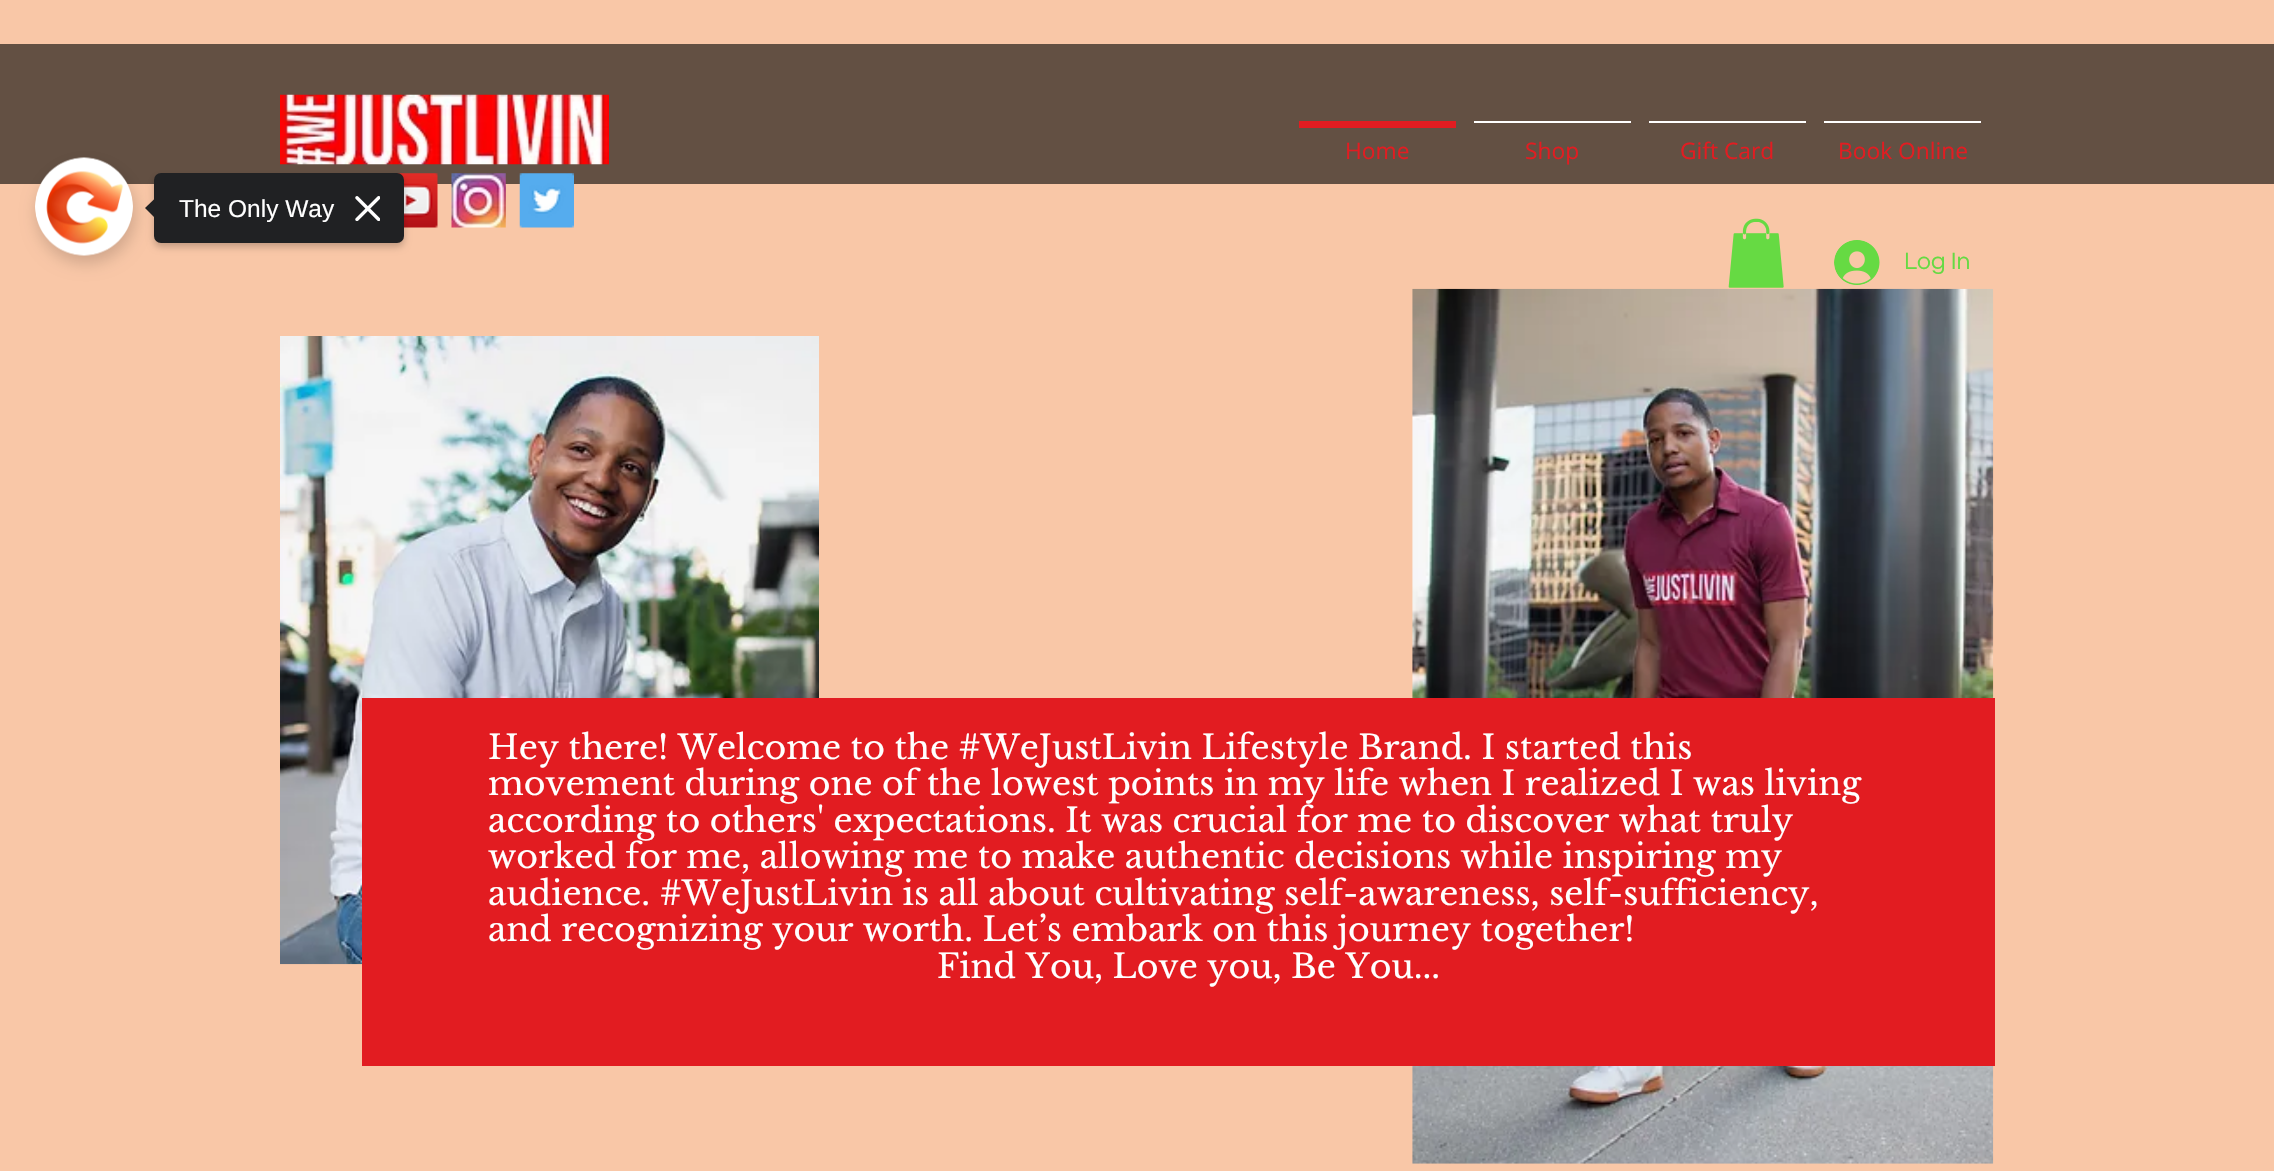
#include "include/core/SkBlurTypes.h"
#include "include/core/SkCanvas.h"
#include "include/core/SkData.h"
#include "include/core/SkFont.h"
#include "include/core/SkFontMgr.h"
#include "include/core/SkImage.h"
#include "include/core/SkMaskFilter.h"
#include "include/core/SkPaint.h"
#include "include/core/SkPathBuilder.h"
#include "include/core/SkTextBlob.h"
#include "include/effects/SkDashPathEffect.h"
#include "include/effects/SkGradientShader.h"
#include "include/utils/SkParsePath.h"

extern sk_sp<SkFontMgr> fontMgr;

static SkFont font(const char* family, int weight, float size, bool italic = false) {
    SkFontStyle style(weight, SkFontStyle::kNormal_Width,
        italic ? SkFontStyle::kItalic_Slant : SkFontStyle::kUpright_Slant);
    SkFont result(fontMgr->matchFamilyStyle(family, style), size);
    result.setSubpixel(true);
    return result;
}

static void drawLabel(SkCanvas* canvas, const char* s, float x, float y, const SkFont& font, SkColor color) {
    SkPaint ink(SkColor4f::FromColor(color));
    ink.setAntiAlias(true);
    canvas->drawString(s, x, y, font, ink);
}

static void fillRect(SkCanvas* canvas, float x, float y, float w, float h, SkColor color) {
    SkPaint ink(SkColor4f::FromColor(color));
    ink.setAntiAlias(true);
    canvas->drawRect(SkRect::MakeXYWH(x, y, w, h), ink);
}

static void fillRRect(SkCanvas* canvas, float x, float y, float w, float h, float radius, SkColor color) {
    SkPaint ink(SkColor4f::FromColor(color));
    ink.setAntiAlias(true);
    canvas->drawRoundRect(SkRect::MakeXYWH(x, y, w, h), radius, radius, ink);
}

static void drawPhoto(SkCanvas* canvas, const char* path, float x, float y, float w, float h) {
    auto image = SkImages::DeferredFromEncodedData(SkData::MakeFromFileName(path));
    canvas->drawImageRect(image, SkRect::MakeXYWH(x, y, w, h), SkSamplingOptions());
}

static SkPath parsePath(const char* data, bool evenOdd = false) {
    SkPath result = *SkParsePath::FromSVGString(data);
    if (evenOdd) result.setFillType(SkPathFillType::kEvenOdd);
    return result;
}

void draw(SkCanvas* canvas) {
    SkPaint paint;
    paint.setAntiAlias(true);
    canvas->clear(0xFFF9C7A7);
    fillRect(canvas, 0, 44, 2274, 140, 0xFF635043);
    paint.setColor(0x2B000000);
    paint.setMaskFilter(SkMaskFilter::MakeBlur(kNormal_SkBlurStyle, 8));
    canvas->drawRoundRect(SkRect::MakeXYWH(37, 165, 98, 98), 49, 49, paint);
    paint.setMaskFilter(nullptr);
    drawPhoto(canvas, "assets/img1.png", 35, 157, 98, 99);
    drawPhoto(canvas, "assets/img4.png", 397, 173, 41, 55);
    paint.setColor(0x38000000);
    paint.setMaskFilter(SkMaskFilter::MakeBlur(kNormal_SkBlurStyle, 3.5f));
    canvas->drawRoundRect(SkRect::MakeXYWH(154, 177, 250, 70), 7, 7, paint);
    paint.setMaskFilter(nullptr);
    fillRRect(canvas, 154, 173, 250, 70, 7, 0xFF202123);
    paint.setColor(0xFF202123);
    canvas->drawPath(parsePath("M157.5 196V220.5L145 208Z"), paint);
    SkFont font1 = font("Liberation Sans", 400, 24.5f);
    drawLabel(canvas, "The Only Way", 179, 217, font1, 0xFFFFFFFF);
    drawPhoto(canvas, "assets/img2.png", 355, 196, 25, 25);
    drawPhoto(canvas, "assets/img3.png", 280, 94, 329, 71);
    fillRect(canvas, 1299, 121, 157, 7, 0xFFE21C21);
    SkFont font2 = font("Open Sans", 400, 22.75f);
    drawLabel(canvas, "Home", 1345, 159, font2, 0xFFE21C21);
    fillRect(canvas, 1474, 121, 157, 2, 0xFFFFFFFF);
    drawLabel(canvas, "Shop", 1525, 159, font2, 0xFFE21C21);
    fillRect(canvas, 1649, 121, 157, 2, 0xFFFFFFFF);
    drawLabel(canvas, "Gift Card", 1680, 159, font2, 0xFFE21C21);
    fillRect(canvas, 1824, 121, 157, 2, 0xFFFFFFFF);
    drawLabel(canvas, "Book Online", 1838, 159, font2, 0xFFE21C21);
    drawPhoto(canvas, "assets/img5.png", 451, 173, 55, 55);
    drawPhoto(canvas, "assets/img6.png", 519, 173, 55, 55);
    drawPhoto(canvas, "assets/img7.png", 1728, 218, 56, 70);
    drawPhoto(canvas, "assets/img8.png", 1834, 240, 46, 45);
    SkFont font3 = font("Questrial", 400, 24.5f);
    drawLabel(canvas, "Log In", 1904, 269, font3, 0xFF66DA43);
    drawPhoto(canvas, "assets/img9.png", 280, 336, 539, 629);
    drawPhoto(canvas, "assets/img10.png", 1412, 288, 582, 876);
    fillRect(canvas, 362, 698, 1633, 368, 0xFFE21C21);
    SkFont font4 = font("Libre Baskerville", 400, 33.25f);
    drawLabel(canvas, "Hey there! Welcome to the #WeJustLivin Lifestyle Brand. I started this", 488, 759, font4, 0xFFFFFFFF);
    drawLabel(canvas, "movement during one of the lowest points in my life when I realized I was living", 488, 795, font4, 0xFFFFFFFF);
    drawLabel(canvas, "according to others' expectations. It was crucial for me to discover what truly", 488, 832, font4, 0xFFFFFFFF);
    drawLabel(canvas, "worked for me, allowing me to make authentic decisions while inspiring my", 488, 868, font4, 0xFFFFFFFF);
    drawLabel(canvas, "audience. #WeJustLivin is all about cultivating self-awareness, self-sufficiency,", 488, 905, font4, 0xFFFFFFFF);
    drawLabel(canvas, "and recognizing your worth. Let’s embark on this journey together!", 488, 941, font4, 0xFFFFFFFF);
    drawLabel(canvas, "Find You, Love you, Be You...", 937, 978, font4, 0xFFFFFFFF);
}
